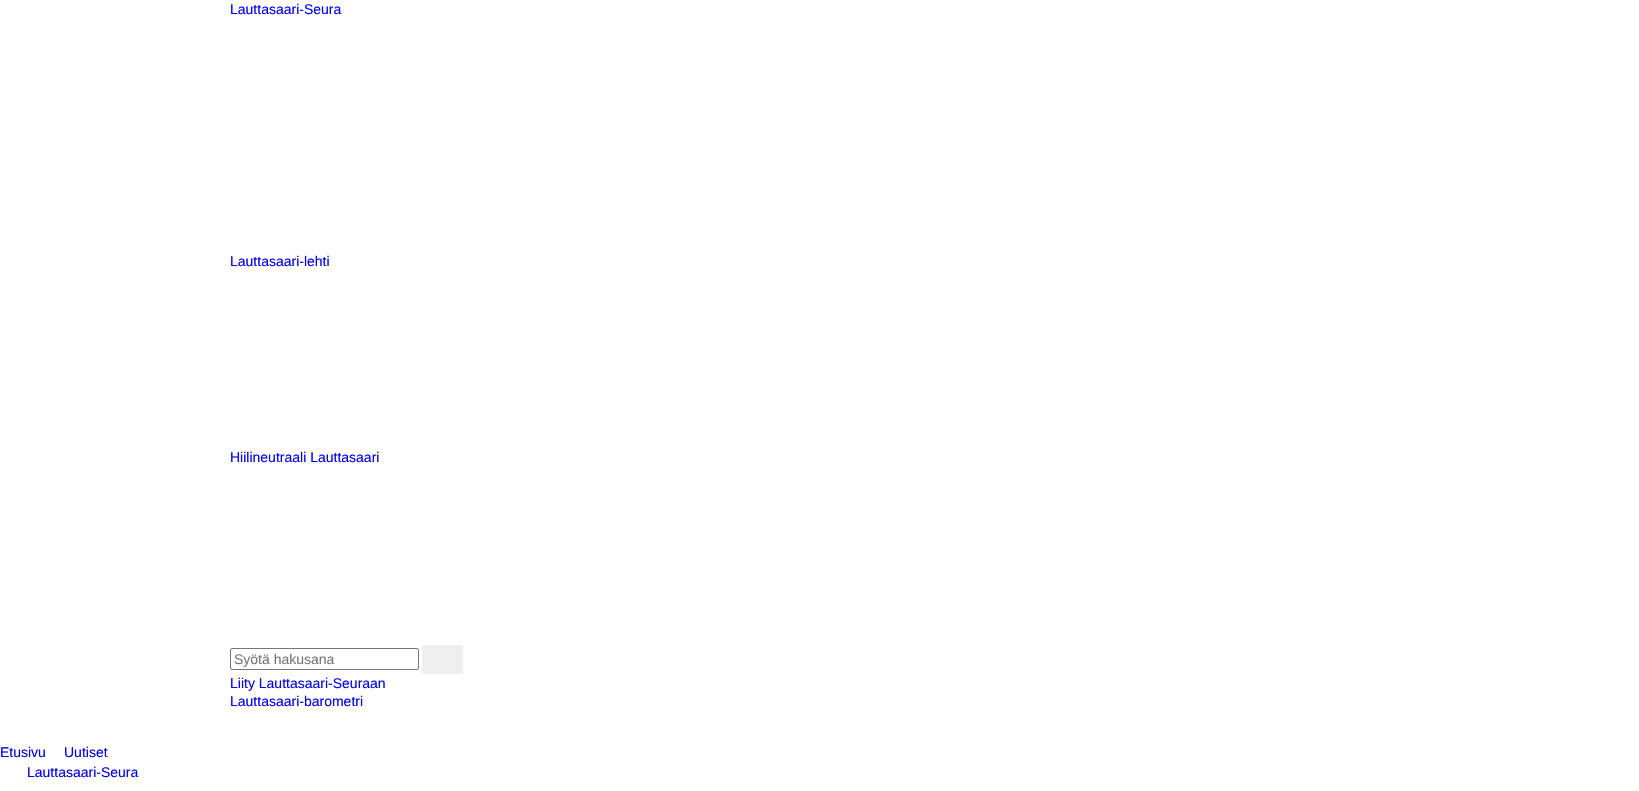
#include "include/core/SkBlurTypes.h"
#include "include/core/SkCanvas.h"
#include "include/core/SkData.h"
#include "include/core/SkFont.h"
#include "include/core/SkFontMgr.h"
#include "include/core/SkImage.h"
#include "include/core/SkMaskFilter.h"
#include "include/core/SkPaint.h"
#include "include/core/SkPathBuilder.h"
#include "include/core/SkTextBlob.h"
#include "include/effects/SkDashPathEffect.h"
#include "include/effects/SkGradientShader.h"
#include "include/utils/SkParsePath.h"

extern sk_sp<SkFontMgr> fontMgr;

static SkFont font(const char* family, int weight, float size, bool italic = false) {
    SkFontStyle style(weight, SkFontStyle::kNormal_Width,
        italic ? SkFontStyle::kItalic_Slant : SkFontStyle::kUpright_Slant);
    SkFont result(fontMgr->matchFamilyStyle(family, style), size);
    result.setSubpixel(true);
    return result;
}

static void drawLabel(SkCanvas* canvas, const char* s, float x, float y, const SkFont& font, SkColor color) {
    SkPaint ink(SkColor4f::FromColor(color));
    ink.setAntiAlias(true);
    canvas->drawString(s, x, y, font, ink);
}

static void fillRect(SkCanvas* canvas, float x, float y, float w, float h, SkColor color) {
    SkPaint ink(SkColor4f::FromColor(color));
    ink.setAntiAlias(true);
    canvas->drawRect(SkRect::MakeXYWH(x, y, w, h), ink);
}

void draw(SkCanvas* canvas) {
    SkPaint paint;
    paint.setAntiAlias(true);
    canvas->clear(0xFFFFFFFF);
    SkFont font1 = font("Liberation Sans", 400, 14);
    drawLabel(canvas, "Lauttasaari-Seura", 230, 14, font1, 0xFF0000EE);
    drawLabel(canvas, "Lauttasaari-lehti", 230, 266, font1, 0xFF0000EE);
    drawLabel(canvas, "Hiilineutraali Lauttasaari", 230, 462, font1, 0xFF0000EE);
    paint.setStroke(true);
    paint.setStrokeWidth(1);
    paint.setColor(0xFF767676);
    canvas->drawRoundRect(SkRect::MakeXYWH(230.5f, 648.5f, 188, 21), 1.5f, 1.5f, paint);
    drawLabel(canvas, "Syötä hakusana", 234, 664, font1, 0xFF757575);
    fillRect(canvas, 422, 645, 41, 29, 0xFFEFEFEF);
    drawLabel(canvas, "Liity Lauttasaari-Seuraan", 230, 688, font1, 0xFF0000EE);
    drawLabel(canvas, "Lauttasaari-barometri", 230, 706, font1, 0xFF0000EE);
    drawLabel(canvas, "Etusivu", 0, 757, font1, 0xFF0000EE);
    drawLabel(canvas, "Uutiset", 64, 757, font1, 0xFF0000EE);
    drawLabel(canvas, "Lauttasaari-Seura", 27, 777, font1, 0xFF0000EE);
}
